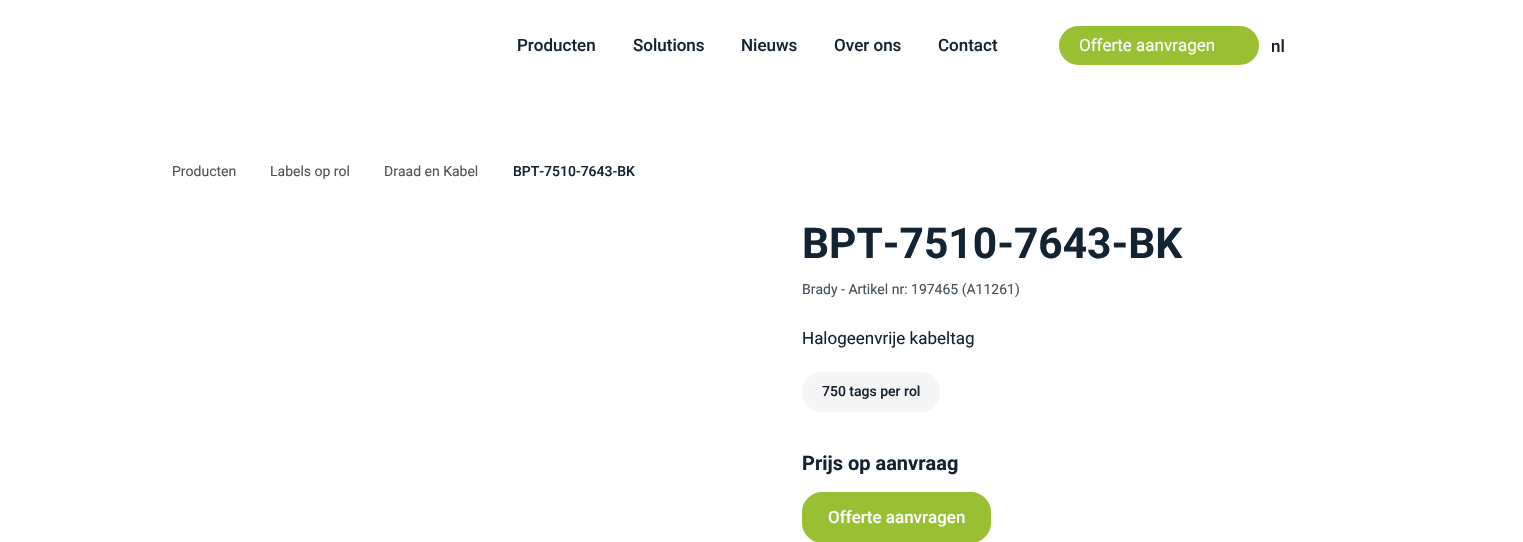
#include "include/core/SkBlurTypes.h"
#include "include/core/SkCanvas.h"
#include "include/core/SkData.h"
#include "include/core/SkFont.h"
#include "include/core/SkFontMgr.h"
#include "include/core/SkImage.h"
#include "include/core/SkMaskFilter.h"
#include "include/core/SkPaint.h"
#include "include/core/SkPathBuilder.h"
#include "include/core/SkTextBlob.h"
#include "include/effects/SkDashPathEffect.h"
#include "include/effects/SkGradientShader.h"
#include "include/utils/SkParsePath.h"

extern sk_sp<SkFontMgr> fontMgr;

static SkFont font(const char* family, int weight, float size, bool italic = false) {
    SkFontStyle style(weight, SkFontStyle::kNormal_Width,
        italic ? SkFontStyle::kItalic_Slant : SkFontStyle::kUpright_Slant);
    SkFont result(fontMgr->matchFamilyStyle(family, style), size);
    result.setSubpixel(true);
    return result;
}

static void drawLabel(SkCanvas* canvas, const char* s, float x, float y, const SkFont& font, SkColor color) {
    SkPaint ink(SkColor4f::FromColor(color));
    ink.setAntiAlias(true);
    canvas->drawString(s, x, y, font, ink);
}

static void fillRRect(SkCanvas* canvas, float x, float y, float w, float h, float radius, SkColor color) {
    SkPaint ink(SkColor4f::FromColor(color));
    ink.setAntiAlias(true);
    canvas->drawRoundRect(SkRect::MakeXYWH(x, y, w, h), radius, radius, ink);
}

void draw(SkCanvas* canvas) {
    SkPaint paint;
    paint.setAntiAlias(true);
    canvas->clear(0xFFFFFFFF);
    SkFont font1 = font("Roboto", 500, 17);
    drawLabel(canvas, "Producten", 517, 51, font1, 0xFF142331);
    drawLabel(canvas, "Solutions", 633, 51, font1, 0xFF142331);
    drawLabel(canvas, "Nieuws", 741, 51, font1, 0xFF142331);
    drawLabel(canvas, "Over ons", 834, 51, font1, 0xFF142331);
    drawLabel(canvas, "Contact", 938, 51, font1, 0xFF142331);
    fillRRect(canvas, 1059, 26, 200, 39, 19.5f, 0xFF99C032);
    SkFont font2 = font("Roboto", 400, 17);
    drawLabel(canvas, "Offerte aanvragen", 1079, 51, font2, 0xFFFFFFFF);
    drawLabel(canvas, "nl", 1271, 52, font1, 0xFF142331);
    SkFont font3 = font("Roboto", 400, 14);
    drawLabel(canvas, "Producten", 172, 176, font3, 0xFF515156);
    drawLabel(canvas, "Labels op rol", 270, 176, font3, 0xFF515156);
    drawLabel(canvas, "Draad en Kabel", 384, 176, font3, 0xFF515156);
    SkFont font4 = font("Roboto", 500, 14);
    drawLabel(canvas, "BPT-7510-7643-BK", 513, 176, font4, 0xFF142331);
    SkFont font5 = font("Roboto", 700, 42.5f);
    drawLabel(canvas, "BPT-7510-7643-BK", 802, 258, font5, 0xFF142331);
    drawLabel(canvas, "Brady - Artikel nr: 197465 (A11261)", 802, 294, font3, 0xFF434F5A);
    drawLabel(canvas, "Halogeenvrije kabeltag", 802, 344, font2, 0xFF142331);
    fillRRect(canvas, 802, 372, 138, 40, 20, 0xFFF6F5F5);
    drawLabel(canvas, "750 tags per rol", 822, 396, font4, 0xFF142331);
    SkFont font6 = font("Roboto", 700, 20);
    drawLabel(canvas, "Prijs op aanvraag", 802, 470, font6, 0xFF142331);
    paint.setColor(0xFF99C032);
    canvas->drawRoundRect(SkRect::MakeXYWH(802.5f, 492.5f, 188, 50), 19.5f, 19.5f, paint);
    paint.setStroke(true);
    paint.setStrokeWidth(1);
    canvas->drawRoundRect(SkRect::MakeXYWH(802.5f, 492.5f, 188, 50), 19.5f, 19.5f, paint);
    drawLabel(canvas, "Offerte aanvragen", 828, 523, font1, 0xFFFFFFFF);
}
